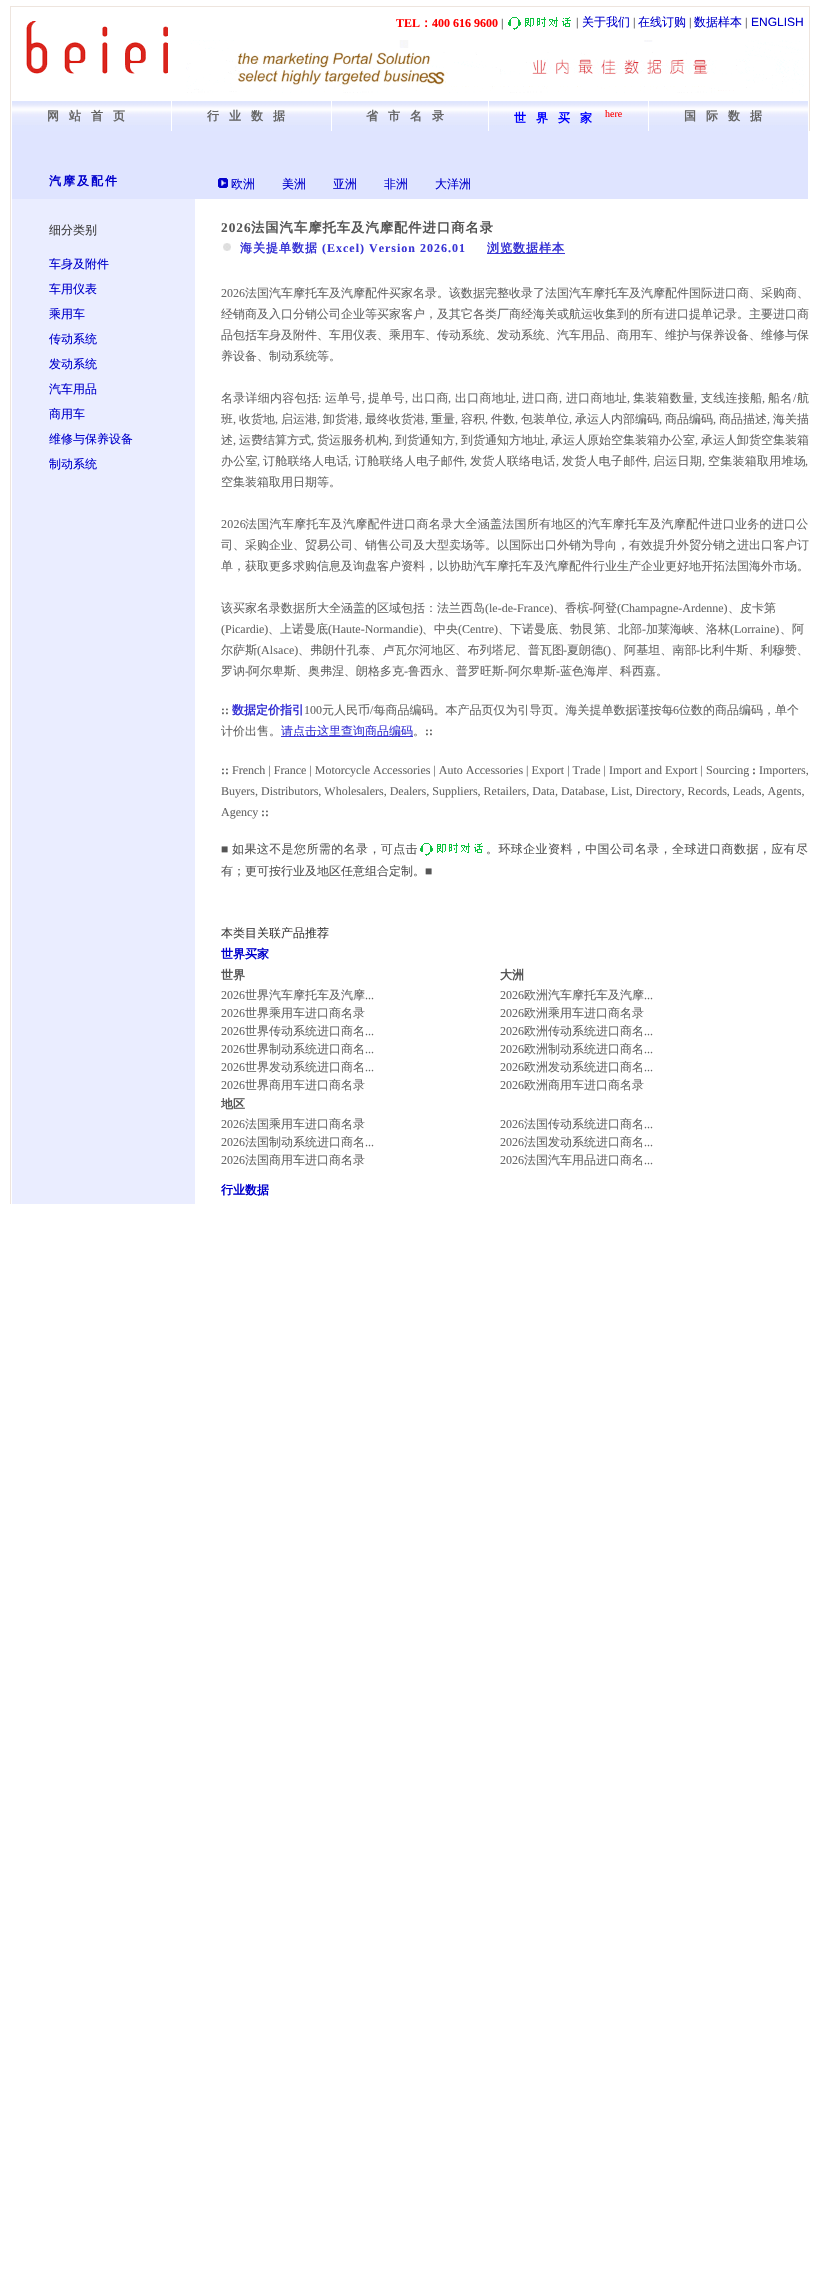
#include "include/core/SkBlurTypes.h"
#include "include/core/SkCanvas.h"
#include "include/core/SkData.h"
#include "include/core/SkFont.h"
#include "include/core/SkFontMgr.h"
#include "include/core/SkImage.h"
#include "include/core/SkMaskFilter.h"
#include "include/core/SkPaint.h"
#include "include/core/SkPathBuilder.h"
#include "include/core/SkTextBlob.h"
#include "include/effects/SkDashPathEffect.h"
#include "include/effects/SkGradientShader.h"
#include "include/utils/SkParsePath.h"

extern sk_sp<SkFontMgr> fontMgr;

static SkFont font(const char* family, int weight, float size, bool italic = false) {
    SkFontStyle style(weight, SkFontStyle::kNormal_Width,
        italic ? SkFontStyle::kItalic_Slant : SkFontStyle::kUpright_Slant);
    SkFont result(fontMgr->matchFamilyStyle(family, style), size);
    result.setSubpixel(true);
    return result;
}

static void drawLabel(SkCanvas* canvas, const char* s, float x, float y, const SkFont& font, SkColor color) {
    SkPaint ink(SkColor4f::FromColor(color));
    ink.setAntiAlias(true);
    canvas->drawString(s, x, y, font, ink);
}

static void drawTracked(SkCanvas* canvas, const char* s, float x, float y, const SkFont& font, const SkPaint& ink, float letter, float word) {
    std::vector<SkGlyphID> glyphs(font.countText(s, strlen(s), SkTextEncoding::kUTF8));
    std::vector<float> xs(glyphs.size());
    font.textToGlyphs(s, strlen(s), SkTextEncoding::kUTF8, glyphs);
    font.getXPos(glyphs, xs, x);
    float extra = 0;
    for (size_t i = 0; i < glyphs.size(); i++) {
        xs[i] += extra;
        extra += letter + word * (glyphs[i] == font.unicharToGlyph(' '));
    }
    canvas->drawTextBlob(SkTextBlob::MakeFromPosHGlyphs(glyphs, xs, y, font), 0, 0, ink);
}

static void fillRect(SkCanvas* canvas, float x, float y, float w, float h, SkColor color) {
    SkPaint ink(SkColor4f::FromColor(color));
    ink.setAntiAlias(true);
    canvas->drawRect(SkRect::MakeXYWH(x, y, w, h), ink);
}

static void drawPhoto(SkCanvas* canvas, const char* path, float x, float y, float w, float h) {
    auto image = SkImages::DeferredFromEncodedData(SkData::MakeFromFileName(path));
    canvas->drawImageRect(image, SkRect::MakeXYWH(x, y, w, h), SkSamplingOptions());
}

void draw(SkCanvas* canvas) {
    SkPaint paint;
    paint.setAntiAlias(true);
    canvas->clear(0xFFFFFFFF);
    fillRect(canvas, 10, 6, 800, 1, 0xFFEEE5DE);
    fillRect(canvas, 10, 6, 1, 1198, 0xFFEEE5DE);
    drawPhoto(canvas, "assets/img1.png", 26, 21, 142, 53);
    fillRect(canvas, 809, 6, 1, 125, 0xFFEEE5DE);
    SkFont font1 = font("Liberation Serif", 700, 12);
    drawLabel(canvas, "TEL", 396, 27, font1, 0xFFFF0000);
    SkFont font2 = font("WenQuanYi Zen Hei", 700, 12);
    drawLabel(canvas, "：", 420, 27, font2, 0xFFFF0000);
    drawLabel(canvas, "400 616 9600", 432, 27, font1, 0xFFFF0000);
    SkFont font3 = font("Liberation Serif", 400, 12);
    drawLabel(canvas, "|", 501, 27, font3, 0xFF3F3E3E);
    drawPhoto(canvas, "assets/img2.png", 508, 17, 63, 13);
    drawLabel(canvas, "|", 576, 26, font3, 0xFF3F3E3E);
    SkFont font4 = font("WenQuanYi Zen Hei", 500, 12);
    drawLabel(canvas, "关于我们", 582, 26, font4, 0xFF0000CC);
    drawLabel(canvas, "|", 633, 26, font3, 0xFF3F3E3E);
    drawLabel(canvas, "在线订购", 638, 26, font4, 0xFF0000CC);
    drawLabel(canvas, "|", 689, 26, font3, 0xFF3F3E3E);
    drawLabel(canvas, "数据样本", 694, 26, font4, 0xFF0000CC);
    drawLabel(canvas, "|", 745, 26, font3, 0xFF3F3E3E);
    SkFont font5 = font("Liberation Sans", 400, 12);
    drawLabel(canvas, "ENGLISH", 751, 26, font5, 0xFF0000CC);
    drawPhoto(canvas, "assets/img3.png", 186, 40, 618, 53);
    drawPhoto(canvas, "assets/img4.png", 12, 101, 159, 30);
    paint.setColor(0xFF666666);
    drawTracked(canvas, "网站首页", 47, 120, font2, paint, 10, 0);
    drawPhoto(canvas, "assets/img4.png", 172, 101, 159, 30);
    drawTracked(canvas, "行业数据", 207, 120, font2, paint, 10, 0);
    drawPhoto(canvas, "assets/img5.png", 332, 101, 156, 30);
    drawTracked(canvas, "省市名录", 366, 120, font2, paint, 10, 0);
    drawPhoto(canvas, "assets/img4.png", 489, 101, 159, 30);
    paint.setColor(0xFF0000FF);
    drawTracked(canvas, "世界买家", 514, 122, font2, paint, 10, 0);
    SkFont font6 = font("Liberation Serif", 400, 10);
    drawLabel(canvas, "here", 605, 117, font6, 0xFFFF0000);
    drawPhoto(canvas, "assets/img4.png", 649, 101, 159, 30);
    paint.setColor(0xFF666666);
    drawTracked(canvas, "国际数据", 684, 120, font2, paint, 10, 0);
    fillRect(canvas, 12, 131, 796, 68, 0xFFDFE4FF);
    paint.setColor(0xFF0000CC);
    drawTracked(canvas, "汽摩及配件", 49, 185, font2, paint, 2, 0);
    drawPhoto(canvas, "assets/img6.png", 218, 178, 10, 10);
    drawLabel(canvas, "欧洲", 231, 188, font4, 0xFF0000CC);
    drawLabel(canvas, "美洲", 282, 188, font4, 0xFF0000CC);
    drawLabel(canvas, "亚洲", 333, 188, font4, 0xFF0000CC);
    drawLabel(canvas, "非洲", 384, 188, font4, 0xFF0000CC);
    drawLabel(canvas, "大洋洲", 435, 188, font4, 0xFF0000CC);
    fillRect(canvas, 12, 199, 183, 1005, 0xFFEAEDFF);
    drawLabel(canvas, "细分类别", 49, 234, font4, 0xFF3F3E3E);
    drawLabel(canvas, "车身及附件", 49, 268, font4, 0xFF0000CC);
    drawLabel(canvas, "车用仪表", 49, 293, font4, 0xFF0000CC);
    drawLabel(canvas, "乘用车", 49, 318, font4, 0xFF0000CC);
    drawLabel(canvas, "传动系统", 49, 343, font4, 0xFF0000CC);
    drawLabel(canvas, "发动系统", 49, 368, font4, 0xFF0000CC);
    drawLabel(canvas, "汽车用品", 49, 393, font4, 0xFF0000CC);
    drawLabel(canvas, "商用车", 49, 418, font4, 0xFF0000CC);
    drawLabel(canvas, "维修与保养设备", 49, 443, font4, 0xFF0000CC);
    drawLabel(canvas, "制动系统", 49, 468, font4, 0xFF0000CC);
    SkFont font7 = font("Liberation Serif", 700, 13.3f);
    paint.setColor(0xFF555555);
    drawTracked(canvas, "2026", 221, 232, font7, paint, 1, 0);
    SkFont font8 = font("WenQuanYi Zen Hei", 700, 13.3f);
    drawTracked(canvas, "法国汽车摩托车及汽摩配件进口商名录", 251, 232, font8, paint, 1, 0);
    drawPhoto(canvas, "assets/img7.png", 223, 243, 8, 8);
    paint.setColor(0xFF3935D5);
    drawTracked(canvas, "海关提单数据", 240, 252, font2, paint, 1, 0);
    drawTracked(canvas, "(Excel) Version 2026.01", 322, 252, font1, paint, 1, 0);
    fillRect(canvas, 487, 253, 78, 1, 0xFF3935D5);
    drawTracked(canvas, "浏览数据样本", 487, 252, font2, paint, 1, 0);
    drawLabel(canvas, "2026", 221, 297, font3, 0xFF666666);
    drawLabel(canvas, "法国汽车摩托车及汽摩配件买家名录。该数据完整收录了法国汽车摩托车及汽摩配件国际进口商、采购商、", 245, 297, font4, 0xFF666666);
    drawLabel(canvas, "经销商及入口分销公司企业等买家客户，及其它各类厂商经海关或航运收集到的所有进口提单记录。主要进口商", 221, 318, font4, 0xFF666666);
    drawLabel(canvas, "品包括车身及附件、车用仪表、乘用车、传动系统、发动系统、汽车用品、商用车、维护与保养设备、维修与保", 221, 339, font4, 0xFF666666);
    drawLabel(canvas, "养设备、制动系统等。", 221, 360, font4, 0xFF666666);
    paint.setColor(0xFF666666);
    drawTracked(canvas, "名录详细内容包括", 221, 402, font4, paint, 0.25f, 0);
    drawTracked(canvas, ":", 318, 402, font3, paint, 0.25f, 0);
    drawTracked(canvas, "运单号", 325, 402, font4, paint, 0.25f, 0);
    drawTracked(canvas, ",", 362, 402, font3, paint, 0.25f, 0);
    drawTracked(canvas, "提单号", 368, 402, font4, paint, 0.25f, 0);
    drawTracked(canvas, ",", 405, 402, font3, paint, 0.25f, 0);
    drawTracked(canvas, "出口商", 412, 402, font4, paint, 0.25f, 0);
    drawTracked(canvas, ",", 448, 402, font3, paint, 0.25f, 0);
    drawTracked(canvas, "出口商地址", 455, 402, font4, paint, 0.25f, 0);
    drawTracked(canvas, ",", 516, 402, font3, paint, 0.25f, 0);
    drawTracked(canvas, "进口商", 522, 402, font4, paint, 0.25f, 0);
    drawTracked(canvas, ",", 559, 402, font3, paint, 0.25f, 0);
    drawTracked(canvas, "进口商地址", 566, 402, font4, paint, 0.25f, 0);
    drawTracked(canvas, ",", 627, 402, font3, paint, 0.25f, 0);
    drawTracked(canvas, "集装箱数量", 633, 402, font4, paint, 0.25f, 0);
    drawTracked(canvas, ",", 694, 402, font3, paint, 0.25f, 0);
    drawTracked(canvas, "支线连接船", 701, 402, font4, paint, 0.25f, 0);
    drawTracked(canvas, ",", 762, 402, font3, paint, 0.25f, 0);
    drawTracked(canvas, "船名", 768, 402, font4, paint, 0.25f, 0);
    drawTracked(canvas, "/", 793, 402, font3, paint, 0.25f, 0);
    drawTracked(canvas, "航", 797, 402, font4, paint, 0.25f, 0);
    drawLabel(canvas, "班", 221, 423, font4, 0xFF666666);
    drawLabel(canvas, ",", 233, 423, font3, 0xFF666666);
    drawLabel(canvas, "收货地", 239, 423, font4, 0xFF666666);
    drawLabel(canvas, ",", 275, 423, font3, 0xFF666666);
    drawLabel(canvas, "启运港", 281, 423, font4, 0xFF666666);
    drawLabel(canvas, ",", 317, 423, font3, 0xFF666666);
    drawLabel(canvas, "卸货港", 323, 423, font4, 0xFF666666);
    drawLabel(canvas, ",", 359, 423, font3, 0xFF666666);
    drawLabel(canvas, "最终收货港", 365, 423, font4, 0xFF666666);
    drawLabel(canvas, ",", 425, 423, font3, 0xFF666666);
    drawLabel(canvas, "重量", 431, 423, font4, 0xFF666666);
    drawLabel(canvas, ",", 455, 423, font3, 0xFF666666);
    drawLabel(canvas, "容积", 461, 423, font4, 0xFF666666);
    drawLabel(canvas, ",", 485, 423, font3, 0xFF666666);
    drawLabel(canvas, "件数", 491, 423, font4, 0xFF666666);
    drawLabel(canvas, ",", 515, 423, font3, 0xFF666666);
    drawLabel(canvas, "包装单位", 521, 423, font4, 0xFF666666);
    drawLabel(canvas, ",", 569, 423, font3, 0xFF666666);
    drawLabel(canvas, "承运人内部编码", 575, 423, font4, 0xFF666666);
    drawLabel(canvas, ",", 659, 423, font3, 0xFF666666);
    drawLabel(canvas, "商品编码", 665, 423, font4, 0xFF666666);
    drawLabel(canvas, ",", 713, 423, font3, 0xFF666666);
    drawLabel(canvas, "商品描述", 719, 423, font4, 0xFF666666);
    drawLabel(canvas, ",", 767, 423, font3, 0xFF666666);
    drawLabel(canvas, "海关描", 773, 423, font4, 0xFF666666);
    drawLabel(canvas, "述", 221, 444, font4, 0xFF666666);
    drawLabel(canvas, ",", 233, 444, font3, 0xFF666666);
    drawLabel(canvas, "运费结算方式", 239, 444, font4, 0xFF666666);
    drawLabel(canvas, ",", 311, 444, font3, 0xFF666666);
    drawLabel(canvas, "货运服务机构", 317, 444, font4, 0xFF666666);
    drawLabel(canvas, ",", 389, 444, font3, 0xFF666666);
    drawLabel(canvas, "到货通知方", 395, 444, font4, 0xFF666666);
    drawLabel(canvas, ",", 455, 444, font3, 0xFF666666);
    drawLabel(canvas, "到货通知方地址", 461, 444, font4, 0xFF666666);
    drawLabel(canvas, ",", 545, 444, font3, 0xFF666666);
    drawLabel(canvas, "承运人原始空集装箱办公室", 551, 444, font4, 0xFF666666);
    drawLabel(canvas, ",", 695, 444, font3, 0xFF666666);
    drawLabel(canvas, "承运人卸货空集装箱", 701, 444, font4, 0xFF666666);
    drawTracked(canvas, "办公室", 221, 465, font4, paint, 0.25f, 0);
    drawTracked(canvas, ",", 257, 465, font3, paint, 0.25f, 0);
    drawTracked(canvas, "订舱联络人电话", 263, 465, font4, paint, 0.25f, 0);
    drawTracked(canvas, ",", 348, 465, font3, paint, 0.25f, 0);
    drawTracked(canvas, "订舱联络人电子邮件", 355, 465, font4, paint, 0.25f, 0);
    drawTracked(canvas, ",", 464, 465, font3, paint, 0.25f, 0);
    drawTracked(canvas, "发货人联络电话", 470, 465, font4, paint, 0.25f, 0);
    drawTracked(canvas, ",", 556, 465, font3, paint, 0.25f, 0);
    drawTracked(canvas, "发货人电子邮件", 562, 465, font4, paint, 0.25f, 0);
    drawTracked(canvas, ",", 647, 465, font3, paint, 0.25f, 0);
    drawTracked(canvas, "启运日期", 653, 465, font4, paint, 0.25f, 0);
    drawTracked(canvas, ",", 702, 465, font3, paint, 0.25f, 0);
    drawTracked(canvas, "空集装箱取用堆场", 708, 465, font4, paint, 0.25f, 0);
    drawTracked(canvas, ",", 805, 465, font3, paint, 0.25f, 0);
    drawLabel(canvas, "空集装箱取用日期等。", 221, 486, font4, 0xFF666666);
    drawTracked(canvas, "2026", 221, 528, font3, paint, 0.25f, 0);
    drawTracked(canvas, "法国汽车摩托车及汽摩配件进口商名录大全涵盖法国所有地区的汽车摩托车及汽摩配件进口业务的进口公", 245, 528, font4, paint, 0.25f, 0);
    drawLabel(canvas, "司、采购企业、贸易公司、销售公司及大型卖场等。以国际出口外销为导向，有效提升外贸分销之进出口客户订", 221, 549, font4, 0xFF666666);
    drawLabel(canvas, "单，获取更多求购信息及询盘客户资料，以协助汽车摩托车及汽摩配件行业生产企业更好地开拓法国海外市场。", 221, 570, font4, 0xFF666666);
    drawLabel(canvas, "该买家名录数据所大全涵盖的区域包括：法兰西岛", 221, 612, font4, 0xFF666666);
    drawLabel(canvas, "(le-de-France)", 485, 612, font3, 0xFF666666);
    drawLabel(canvas, "、香槟", 553, 612, font4, 0xFF666666);
    drawLabel(canvas, "-", 589, 612, font3, 0xFF666666);
    drawLabel(canvas, "阿登", 593, 612, font4, 0xFF666666);
    drawLabel(canvas, "(Champagne-Ardenne)", 617, 612, font3, 0xFF666666);
    drawLabel(canvas, "、皮卡第", 728, 612, font4, 0xFF666666);
    drawLabel(canvas, "(Picardie)", 221, 633, font3, 0xFF666666);
    drawLabel(canvas, "、上诺曼底", 268, 633, font4, 0xFF666666);
    drawLabel(canvas, "(Haute-Normandie)", 328, 633, font3, 0xFF666666);
    drawLabel(canvas, "、中央", 422, 633, font4, 0xFF666666);
    drawLabel(canvas, "(Centre)", 458, 633, font3, 0xFF666666);
    drawLabel(canvas, "、下诺曼底、勃艮第、北部", 498, 633, font4, 0xFF666666);
    drawLabel(canvas, "-", 642, 633, font3, 0xFF666666);
    drawLabel(canvas, "加莱海峡、洛林", 646, 633, font4, 0xFF666666);
    drawLabel(canvas, "(Lorraine)", 730, 633, font3, 0xFF666666);
    drawLabel(canvas, "、阿", 780, 633, font4, 0xFF666666);
    drawTracked(canvas, "尔萨斯", 221, 654, font4, paint, 0.1f, 0);
    drawTracked(canvas, "(Alsace)", 257, 654, font3, paint, 0.1f, 0);
    drawTracked(canvas, "、弗朗什孔泰、卢瓦尔河地区、布列塔尼、普瓦图", 298, 654, font4, paint, 0.1f, 0);
    drawTracked(canvas, "-", 563, 654, font3, paint, 0.1f, 0);
    drawTracked(canvas, "夏朗德", 567, 654, font4, paint, 0.1f, 0);
    drawTracked(canvas, "()", 603, 654, font3, paint, 0.1f, 0);
    drawTracked(canvas, "、阿基坦、南部", 612, 654, font4, paint, 0.1f, 0);
    drawTracked(canvas, "-", 696, 654, font3, paint, 0.1f, 0);
    drawTracked(canvas, "比利牛斯、利穆赞、", 700, 654, font4, paint, 0.1f, 0);
    drawLabel(canvas, "罗讷", 221, 675, font4, 0xFF666666);
    drawLabel(canvas, "-", 245, 675, font3, 0xFF666666);
    drawLabel(canvas, "阿尔卑斯、奥弗涅、朗格多克", 248, 675, font4, 0xFF666666);
    drawLabel(canvas, "-", 404, 675, font3, 0xFF666666);
    drawLabel(canvas, "鲁西永、普罗旺斯", 408, 675, font4, 0xFF666666);
    drawLabel(canvas, "-", 504, 675, font3, 0xFF666666);
    drawLabel(canvas, "阿尔卑斯", 508, 675, font4, 0xFF666666);
    drawLabel(canvas, "-", 556, 675, font3, 0xFF666666);
    drawLabel(canvas, "蓝色海岸、科西嘉。", 560, 675, font4, 0xFF666666);
    drawLabel(canvas, "数据定价指引", 232, 714, font2, 0xFF3935D5);
    drawLabel(canvas, "100", 304, 714, font3, 0xFF666666);
    drawLabel(canvas, "元人民币 每商品编码。本产品页仅为引导页。海关提单数据谨按每", 322, 714, font4, 0xFF666666);
    drawLabel(canvas, "6", 673, 714, font3, 0xFF666666);
    drawLabel(canvas, "位数的商品编码，单个", 679, 714, font4, 0xFF666666);
    drawLabel(canvas, "::", 221, 714, font1, 0xFF666666);
    drawLabel(canvas, "/", 370, 714, font3, 0xFF666666);
    drawLabel(canvas, "计价出售。", 221, 735, font4, 0xFF666666);
    fillRect(canvas, 281, 736, 132, 1, 0xFF3935D5);
    drawLabel(canvas, "请点击这里查询商品编码", 281, 735, font4, 0xFF3935D5);
    drawLabel(canvas, "。", 413, 735, font4, 0xFF666666);
    drawLabel(canvas, "::", 425, 735, font1, 0xFF666666);
    drawLabel(canvas, "::", 221, 774, font1, 0xFF666666);
    drawLabel(canvas, "French | France | Motorcycle Accessories | Auto Accessories | Export | Trade | Import and Export | Sourcing", 232, 774, font3, 0xFF666666);
    drawLabel(canvas, ":", 752, 774, font1, 0xFF666666);
    drawLabel(canvas, "Importers,", 759, 774, font3, 0xFF666666);
    drawLabel(canvas, "Buyers, Distributors, Wholesalers, Dealers, Suppliers, Retailers, Data, Database, List, Directory, Records, Leads, Agents,", 221, 795, font3, 0xFF666666);
    drawLabel(canvas, "Agency", 221, 816, font3, 0xFF666666);
    drawLabel(canvas, "::", 261, 816, font1, 0xFF666666);
    paint.setColor(0xFF555555);
    drawTracked(canvas, "■", 221, 853, font3, paint, 0.4f, 0);
    drawTracked(canvas, "如果这不是您所需的名录，可点击", 232, 853, font4, paint, 0.4f, 0);
    drawPhoto(canvas, "assets/img2.png", 420, 843, 63, 13);
    drawTracked(canvas, "。环球企业资料，中国公司名录，全球进口商数据，应有尽", 486, 853, font4, paint, 0.4f, 0);
    drawLabel(canvas, "有；更可按行业及地区任意组合定制。", 221, 875, font4, 0xFF555555);
    drawLabel(canvas, "■", 425, 875, font3, 0xFF555555);
    drawLabel(canvas, "本类目关联产品推荐", 221, 937, font4, 0xFF3F3E3E);
    drawLabel(canvas, "世界买家", 221, 958, font2, 0xFF0000CC);
    drawLabel(canvas, "世界", 221, 979, font2, 0xFF555555);
    drawLabel(canvas, "2026", 221, 999, font3, 0xFF666666);
    drawLabel(canvas, "世界汽车摩托车及汽摩", 245, 999, font4, 0xFF666666);
    drawLabel(canvas, "...", 365, 999, font3, 0xFF666666);
    drawLabel(canvas, "2026", 221, 1017, font3, 0xFF666666);
    drawLabel(canvas, "世界乘用车进口商名录", 245, 1017, font4, 0xFF666666);
    drawLabel(canvas, "2026", 221, 1035, font3, 0xFF666666);
    drawLabel(canvas, "世界传动系统进口商名", 245, 1035, font4, 0xFF666666);
    drawLabel(canvas, "...", 365, 1035, font3, 0xFF666666);
    drawLabel(canvas, "2026", 221, 1053, font3, 0xFF666666);
    drawLabel(canvas, "世界制动系统进口商名", 245, 1053, font4, 0xFF666666);
    drawLabel(canvas, "...", 365, 1053, font3, 0xFF666666);
    drawLabel(canvas, "2026", 221, 1071, font3, 0xFF666666);
    drawLabel(canvas, "世界发动系统进口商名", 245, 1071, font4, 0xFF666666);
    drawLabel(canvas, "...", 365, 1071, font3, 0xFF666666);
    drawLabel(canvas, "2026", 221, 1089, font3, 0xFF666666);
    drawLabel(canvas, "世界商用车进口商名录", 245, 1089, font4, 0xFF666666);
    drawLabel(canvas, "大洲", 500, 979, font2, 0xFF555555);
    drawLabel(canvas, "2026", 500, 999, font3, 0xFF666666);
    drawLabel(canvas, "欧洲汽车摩托车及汽摩", 524, 999, font4, 0xFF666666);
    drawLabel(canvas, "...", 644, 999, font3, 0xFF666666);
    drawLabel(canvas, "2026", 500, 1017, font3, 0xFF666666);
    drawLabel(canvas, "欧洲乘用车进口商名录", 524, 1017, font4, 0xFF666666);
    drawLabel(canvas, "2026", 500, 1035, font3, 0xFF666666);
    drawLabel(canvas, "欧洲传动系统进口商名", 524, 1035, font4, 0xFF666666);
    drawLabel(canvas, "...", 644, 1035, font3, 0xFF666666);
    drawLabel(canvas, "2026", 500, 1053, font3, 0xFF666666);
    drawLabel(canvas, "欧洲制动系统进口商名", 524, 1053, font4, 0xFF666666);
    drawLabel(canvas, "...", 644, 1053, font3, 0xFF666666);
    drawLabel(canvas, "2026", 500, 1071, font3, 0xFF666666);
    drawLabel(canvas, "欧洲发动系统进口商名", 524, 1071, font4, 0xFF666666);
    drawLabel(canvas, "...", 644, 1071, font3, 0xFF666666);
    drawLabel(canvas, "2026", 500, 1089, font3, 0xFF666666);
    drawLabel(canvas, "欧洲商用车进口商名录", 524, 1089, font4, 0xFF666666);
    drawLabel(canvas, "地区", 221, 1108, font2, 0xFF555555);
    drawLabel(canvas, "2026", 221, 1128, font3, 0xFF666666);
    drawLabel(canvas, "法国乘用车进口商名录", 245, 1128, font4, 0xFF666666);
    drawLabel(canvas, "2026", 500, 1128, font3, 0xFF666666);
    drawLabel(canvas, "法国传动系统进口商名", 524, 1128, font4, 0xFF666666);
    drawLabel(canvas, "...", 644, 1128, font3, 0xFF666666);
    drawLabel(canvas, "2026", 221, 1146, font3, 0xFF666666);
    drawLabel(canvas, "法国制动系统进口商名", 245, 1146, font4, 0xFF666666);
    drawLabel(canvas, "...", 365, 1146, font3, 0xFF666666);
    drawLabel(canvas, "2026", 500, 1146, font3, 0xFF666666);
    drawLabel(canvas, "法国发动系统进口商名", 524, 1146, font4, 0xFF666666);
    drawLabel(canvas, "...", 644, 1146, font3, 0xFF666666);
    drawLabel(canvas, "2026", 221, 1164, font3, 0xFF666666);
    drawLabel(canvas, "法国商用车进口商名录", 245, 1164, font4, 0xFF666666);
    drawLabel(canvas, "2026", 500, 1164, font3, 0xFF666666);
    drawLabel(canvas, "法国汽车用品进口商名", 524, 1164, font4, 0xFF666666);
    drawLabel(canvas, "...", 644, 1164, font3, 0xFF666666);
    drawLabel(canvas, "行业数据", 221, 1194, font2, 0xFF0000CC);
}
